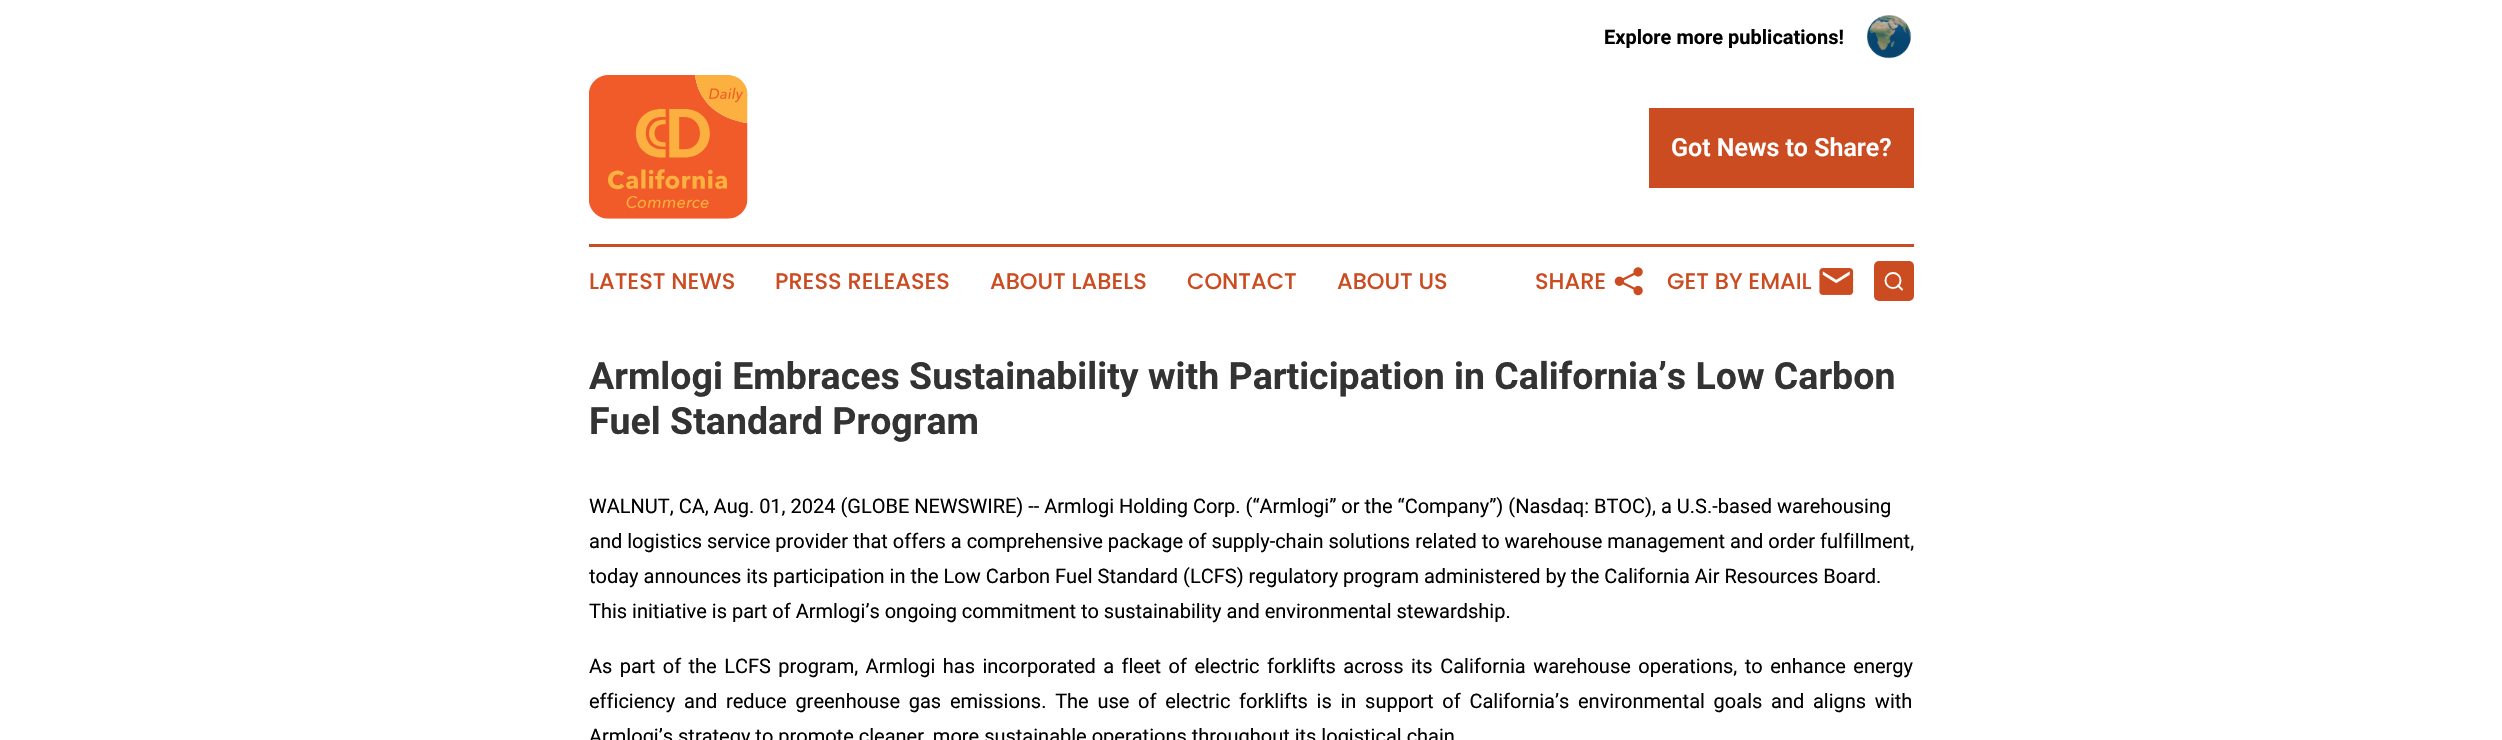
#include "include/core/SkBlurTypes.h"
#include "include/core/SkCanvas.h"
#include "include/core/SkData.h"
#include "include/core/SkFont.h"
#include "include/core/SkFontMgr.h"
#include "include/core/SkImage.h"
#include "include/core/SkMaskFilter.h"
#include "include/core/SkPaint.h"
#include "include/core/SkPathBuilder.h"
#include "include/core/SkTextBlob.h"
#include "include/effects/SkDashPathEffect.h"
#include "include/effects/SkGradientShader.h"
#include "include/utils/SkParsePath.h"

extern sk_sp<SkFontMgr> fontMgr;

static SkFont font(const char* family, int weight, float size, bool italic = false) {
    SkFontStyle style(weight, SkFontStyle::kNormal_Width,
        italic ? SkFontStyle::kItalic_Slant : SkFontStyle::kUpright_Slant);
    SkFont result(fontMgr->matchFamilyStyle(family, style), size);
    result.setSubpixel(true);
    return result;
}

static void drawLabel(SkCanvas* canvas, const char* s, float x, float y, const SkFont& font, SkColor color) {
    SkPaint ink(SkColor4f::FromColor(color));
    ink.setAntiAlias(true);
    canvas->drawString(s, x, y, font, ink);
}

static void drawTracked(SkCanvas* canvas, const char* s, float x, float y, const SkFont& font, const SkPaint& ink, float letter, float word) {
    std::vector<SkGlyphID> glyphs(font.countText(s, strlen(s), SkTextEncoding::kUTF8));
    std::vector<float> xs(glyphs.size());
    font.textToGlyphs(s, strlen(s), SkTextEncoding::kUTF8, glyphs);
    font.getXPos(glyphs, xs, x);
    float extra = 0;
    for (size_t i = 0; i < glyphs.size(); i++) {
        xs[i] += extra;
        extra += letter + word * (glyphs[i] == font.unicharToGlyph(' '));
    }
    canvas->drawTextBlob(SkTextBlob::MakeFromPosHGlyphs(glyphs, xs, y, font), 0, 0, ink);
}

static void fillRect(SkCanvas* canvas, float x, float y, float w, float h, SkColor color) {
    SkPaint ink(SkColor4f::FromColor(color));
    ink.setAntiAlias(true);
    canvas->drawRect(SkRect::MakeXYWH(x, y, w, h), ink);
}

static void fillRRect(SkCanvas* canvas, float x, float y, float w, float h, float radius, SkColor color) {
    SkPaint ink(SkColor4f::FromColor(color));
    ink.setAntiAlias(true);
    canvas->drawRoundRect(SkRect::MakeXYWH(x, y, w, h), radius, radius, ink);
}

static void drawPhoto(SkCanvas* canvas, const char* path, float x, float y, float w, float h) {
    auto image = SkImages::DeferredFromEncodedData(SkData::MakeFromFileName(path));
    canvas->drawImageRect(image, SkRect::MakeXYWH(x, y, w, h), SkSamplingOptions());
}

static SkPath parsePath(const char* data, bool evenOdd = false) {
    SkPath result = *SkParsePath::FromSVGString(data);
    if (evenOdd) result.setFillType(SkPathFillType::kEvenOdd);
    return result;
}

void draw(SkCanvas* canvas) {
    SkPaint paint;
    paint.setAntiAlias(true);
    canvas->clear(0xFFFFFFFF);
    SkFont font1 = font("Roboto", 700, 20);
    drawLabel(canvas, "Explore more publications!", 1604, 44, font1, 0xFF000000);
    drawPhoto(canvas, "assets/img1.png", 1867, 15, 45, 44);
    drawPhoto(canvas, "assets/img2.png", 589, 75, 159, 144);
    fillRect(canvas, 1649, 108, 265, 80, 0xFFCC4C22);
    SkFont font2 = font("Roboto", 600, 25);
    drawLabel(canvas, "Got News to Share?", 1671, 156, font2, 0xFFFFFFFF);
    fillRect(canvas, 589, 244, 1325, 3, 0xFFCC4C22);
    SkFont font3 = font("Poppins", 500, 22.5f);
    drawLabel(canvas, "LATEST NEWS", 589, 289, font3, 0xFFCC4C22);
    drawLabel(canvas, "PRESS RELEASES", 775, 289, font3, 0xFFCC4C22);
    drawLabel(canvas, "ABOUT LABELS", 990, 289, font3, 0xFFCC4C22);
    drawLabel(canvas, "CONTACT", 1187, 289, font3, 0xFFCC4C22);
    drawLabel(canvas, "ABOUT US", 1337, 289, font3, 0xFFCC4C22);
    drawLabel(canvas, "SHARE", 1535, 289, font3, 0xFFCC4C22);
    drawPhoto(canvas, "assets/img3.png", 1614, 267, 29, 29);
    drawLabel(canvas, "GET BY EMAIL", 1667, 289, font3, 0xFFCC4C22);
    drawPhoto(canvas, "assets/img4.png", 1819, 268, 35, 27);
    fillRRect(canvas, 1874, 261, 40, 40, 5, 0xFFCC4C22);
    paint.setStroke(true);
    paint.setStrokeWidth(1.9f);
    paint.setColor(0xFFFFFFFF);
    canvas->drawCircle(1893, 280.5f, 7.5f, paint);
    paint.setStrokeCap(SkPaint::kRound_Cap);
    paint.setStrokeJoin(SkPaint::kRound_Join);
    canvas->drawPath(parsePath("M1902 289.5L1898 285.5"), paint);
    SkFont font4 = font("Roboto", 700, 37.5f);
    drawLabel(canvas, "Armlogi Embraces Sustainability with Participation in California’s Low Carbon", 589, 389, font4, 0xFF333333);
    drawLabel(canvas, "Fuel Standard Program", 589, 434, font4, 0xFF333333);
    SkFont font5 = font("Roboto", 400, 20);
    drawLabel(canvas, "WALNUT, CA, Aug. 01, 2024 (GLOBE NEWSWIRE) -- Armlogi Holding Corp. (“Armlogi” or the “Company”) (Nasdaq: BTOC), a U.S.-based warehousing", 589, 513, font5, 0xFF000000);
    drawLabel(canvas, "and logistics service provider that offers a comprehensive package of supply-chain solutions related to warehouse management and order fulfillment,", 589, 548, font5, 0xFF000000);
    drawLabel(canvas, "today announces its participation in the Low Carbon Fuel Standard (LCFS) regulatory program administered by the California Air Resources Board.", 589, 583, font5, 0xFF000000);
    drawLabel(canvas, "This initiative is part of Armlogi’s ongoing commitment to sustainability and environmental stewardship.", 589, 618, font5, 0xFF000000);
    paint.setStroke(false);
    paint.setColor(0xFF000000);
    drawTracked(canvas, "As part of the LCFS program, Armlogi has incorporated a fleet of electric forklifts across its California warehouse operations, to enhance energy", 589, 673, font5, paint, 0, 2.5f);
    drawTracked(canvas, "efficiency and reduce greenhouse gas emissions. The use of electric forklifts is in support of California’s environmental goals and aligns with", 589, 708, font5, paint, 0, 3.75f);
    drawLabel(canvas, "Armlogi’s strategy to promote cleaner, more sustainable operations throughout its logistical chain", 589, 743, font5, 0xFF000000);
}
